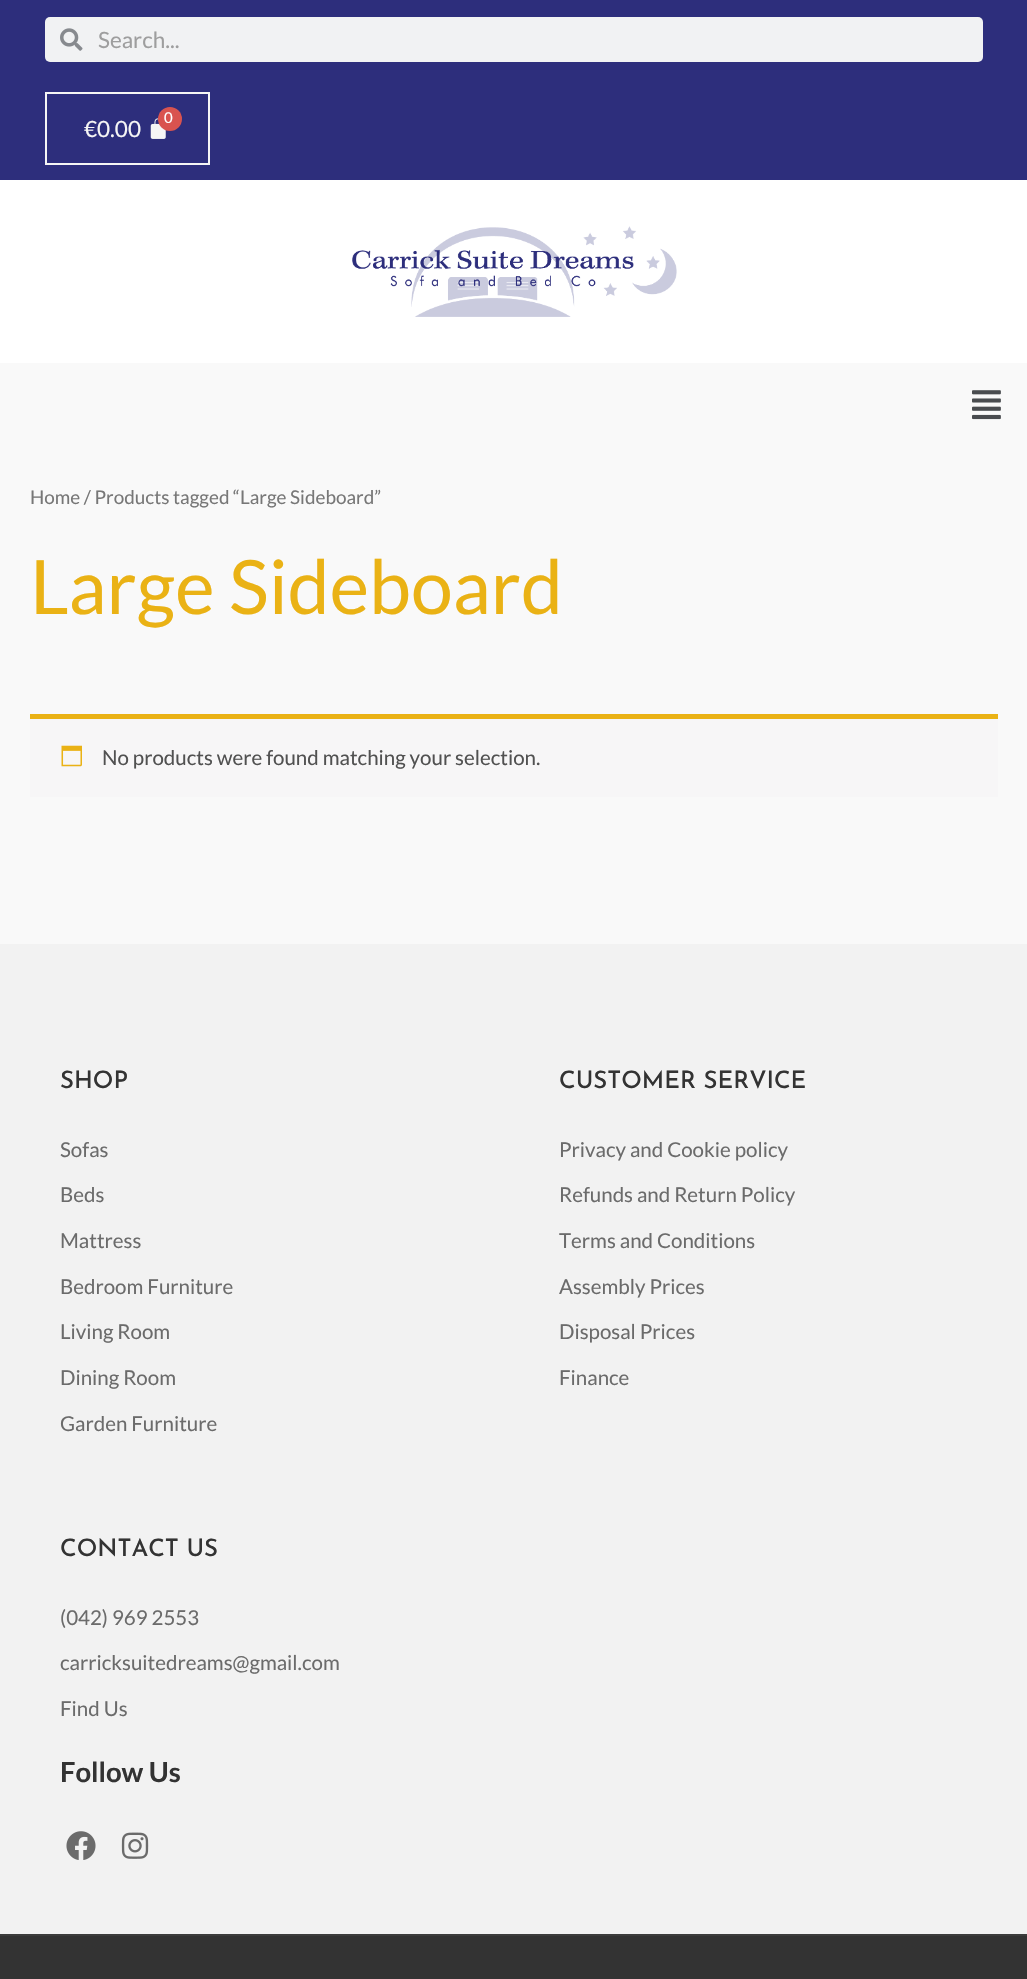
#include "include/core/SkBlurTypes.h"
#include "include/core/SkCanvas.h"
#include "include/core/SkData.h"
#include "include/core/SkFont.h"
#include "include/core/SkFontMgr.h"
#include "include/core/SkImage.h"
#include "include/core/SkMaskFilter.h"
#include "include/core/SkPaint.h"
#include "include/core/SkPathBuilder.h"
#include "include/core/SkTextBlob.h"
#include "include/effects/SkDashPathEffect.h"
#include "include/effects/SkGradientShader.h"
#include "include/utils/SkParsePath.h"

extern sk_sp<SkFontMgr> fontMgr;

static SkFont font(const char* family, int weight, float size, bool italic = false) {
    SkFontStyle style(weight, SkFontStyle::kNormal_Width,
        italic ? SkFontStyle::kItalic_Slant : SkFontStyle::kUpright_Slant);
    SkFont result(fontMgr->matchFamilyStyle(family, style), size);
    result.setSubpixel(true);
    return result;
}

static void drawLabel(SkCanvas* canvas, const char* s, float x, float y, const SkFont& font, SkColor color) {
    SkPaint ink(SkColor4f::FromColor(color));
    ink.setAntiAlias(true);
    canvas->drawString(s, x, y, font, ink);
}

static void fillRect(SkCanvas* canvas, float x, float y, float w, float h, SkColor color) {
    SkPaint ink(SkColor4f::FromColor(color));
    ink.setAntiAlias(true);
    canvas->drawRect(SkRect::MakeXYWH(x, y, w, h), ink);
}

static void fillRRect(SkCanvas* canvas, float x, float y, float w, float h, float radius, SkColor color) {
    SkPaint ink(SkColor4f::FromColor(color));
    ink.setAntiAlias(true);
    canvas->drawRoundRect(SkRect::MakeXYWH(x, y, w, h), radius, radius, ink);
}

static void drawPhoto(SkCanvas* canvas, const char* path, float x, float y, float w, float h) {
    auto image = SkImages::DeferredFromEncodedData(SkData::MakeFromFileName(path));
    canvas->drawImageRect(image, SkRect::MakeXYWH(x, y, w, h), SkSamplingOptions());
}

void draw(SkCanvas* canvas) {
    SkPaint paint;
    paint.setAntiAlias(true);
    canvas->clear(0xFFF9F9F9);
    fillRect(canvas, 0, 0, 1027, 180, 0xFF2D2E7C);
    fillRRect(canvas, 45, 17, 938, 45, 5, 0xFFF1F2F3);
    drawPhoto(canvas, "assets/img1.png", 60, 28, 23, 23);
    SkFont font1 = font("Lato", 400, 22.5f);
    drawLabel(canvas, "Search...", 98, 48, font1, 0xFF9E9E9E);
    paint.setStroke(true);
    paint.setStrokeWidth(2);
    paint.setColor(0xFFF5F5F5);
    canvas->drawRect(SkRect::MakeXYWH(46, 93, 163, 71), paint);
    drawPhoto(canvas, "assets/img2.png", 150, 118, 16, 21);
    paint.setStroke(false);
    paint.setColor(0xFFD9534F);
    canvas->drawCircle(170, 119, 12, paint);
    SkFont font2 = font("Lato", 400, 15);
    drawLabel(canvas, "0", 164, 123, font2, 0xFFFFFFFF);
    drawLabel(canvas, "€0.00", 84, 137, font1, 0xFFF5F5F5);
    fillRect(canvas, 0, 180, 1027, 183, 0xFFFFFFFF);
    drawPhoto(canvas, "assets/img3.png", 352, 226, 325, 91);
    drawPhoto(canvas, "assets/img4.png", 972, 390, 29, 30);
    SkFont font3 = font("Lato", 400, 18.9f);
    drawLabel(canvas, "Home / Products tagged “Large Sideboard”", 30, 504, font3, 0xFF777777);
    SkFont font4 = font("Lato", 400, 75);
    drawLabel(canvas, "Large Sideboard", 30, 614, font4, 0xFFEAB215);
    fillRect(canvas, 30, 719, 968, 78, 0xFFF7F6F7);
    fillRect(canvas, 30, 714, 968, 5, 0xFFEAB215);
    drawPhoto(canvas, "assets/img5.png", 61, 745, 21, 22);
    SkFont font5 = font("Lato", 400, 20.5f);
    drawLabel(canvas, "No products were found matching your selection.", 102, 765, font5, 0xFF515151);
    fillRect(canvas, 0, 944, 1027, 990, 0xFFF2F2F2);
    SkFont font6 = font("Josefin Sans", 500, 24);
    drawLabel(canvas, "SHOP", 60, 1088, font6, 0xFF333333);
    drawLabel(canvas, "Sofas", 60, 1157, font5, 0xFF6B6B6B);
    drawLabel(canvas, "Beds", 60, 1202, font5, 0xFF6B6B6B);
    drawLabel(canvas, "Mattress", 60, 1248, font5, 0xFF6B6B6B);
    drawLabel(canvas, "Bedroom Furniture", 60, 1294, font5, 0xFF6B6B6B);
    drawLabel(canvas, "Living Room", 60, 1339, font5, 0xFF6B6B6B);
    drawLabel(canvas, "Dining Room", 60, 1385, font5, 0xFF6B6B6B);
    drawLabel(canvas, "Garden Furniture", 60, 1431, font5, 0xFF6B6B6B);
    drawLabel(canvas, "CUSTOMER SERVICE", 559, 1088, font6, 0xFF333333);
    drawLabel(canvas, "Privacy and Cookie policy", 559, 1157, font5, 0xFF6B6B6B);
    drawLabel(canvas, "Refunds and Return Policy", 559, 1202, font5, 0xFF6B6B6B);
    drawLabel(canvas, "Terms and Conditions", 559, 1248, font5, 0xFF6B6B6B);
    drawLabel(canvas, "Assembly Prices", 559, 1294, font5, 0xFF6B6B6B);
    drawLabel(canvas, "Disposal Prices", 559, 1339, font5, 0xFF6B6B6B);
    drawLabel(canvas, "Finance", 559, 1385, font5, 0xFF6B6B6B);
    drawLabel(canvas, "CONTACT US", 60, 1556, font6, 0xFF333333);
    drawLabel(canvas, "(042) 969 2553", 60, 1625, font5, 0xFF6B6B6B);
    drawLabel(canvas, "carricksuitedreams@gmail.com", 60, 1670, font5, 0xFF6B6B6B);
    drawLabel(canvas, "Find Us", 60, 1716, font5, 0xFF6B6B6B);
    SkFont font7 = font("Lato", 700, 27.5f);
    drawLabel(canvas, "Follow Us", 60, 1782, font7, 0xFF333333);
    drawPhoto(canvas, "assets/img6.png", 66, 1831, 30, 29);
    drawPhoto(canvas, "assets/img7.png", 121, 1832, 28, 27);
    fillRect(canvas, 0, 1936, 1027, 43, 0xFF333333);
    fillRect(canvas, 0, 1934, 1027, 2, 0xFF3C3C3C);
}
